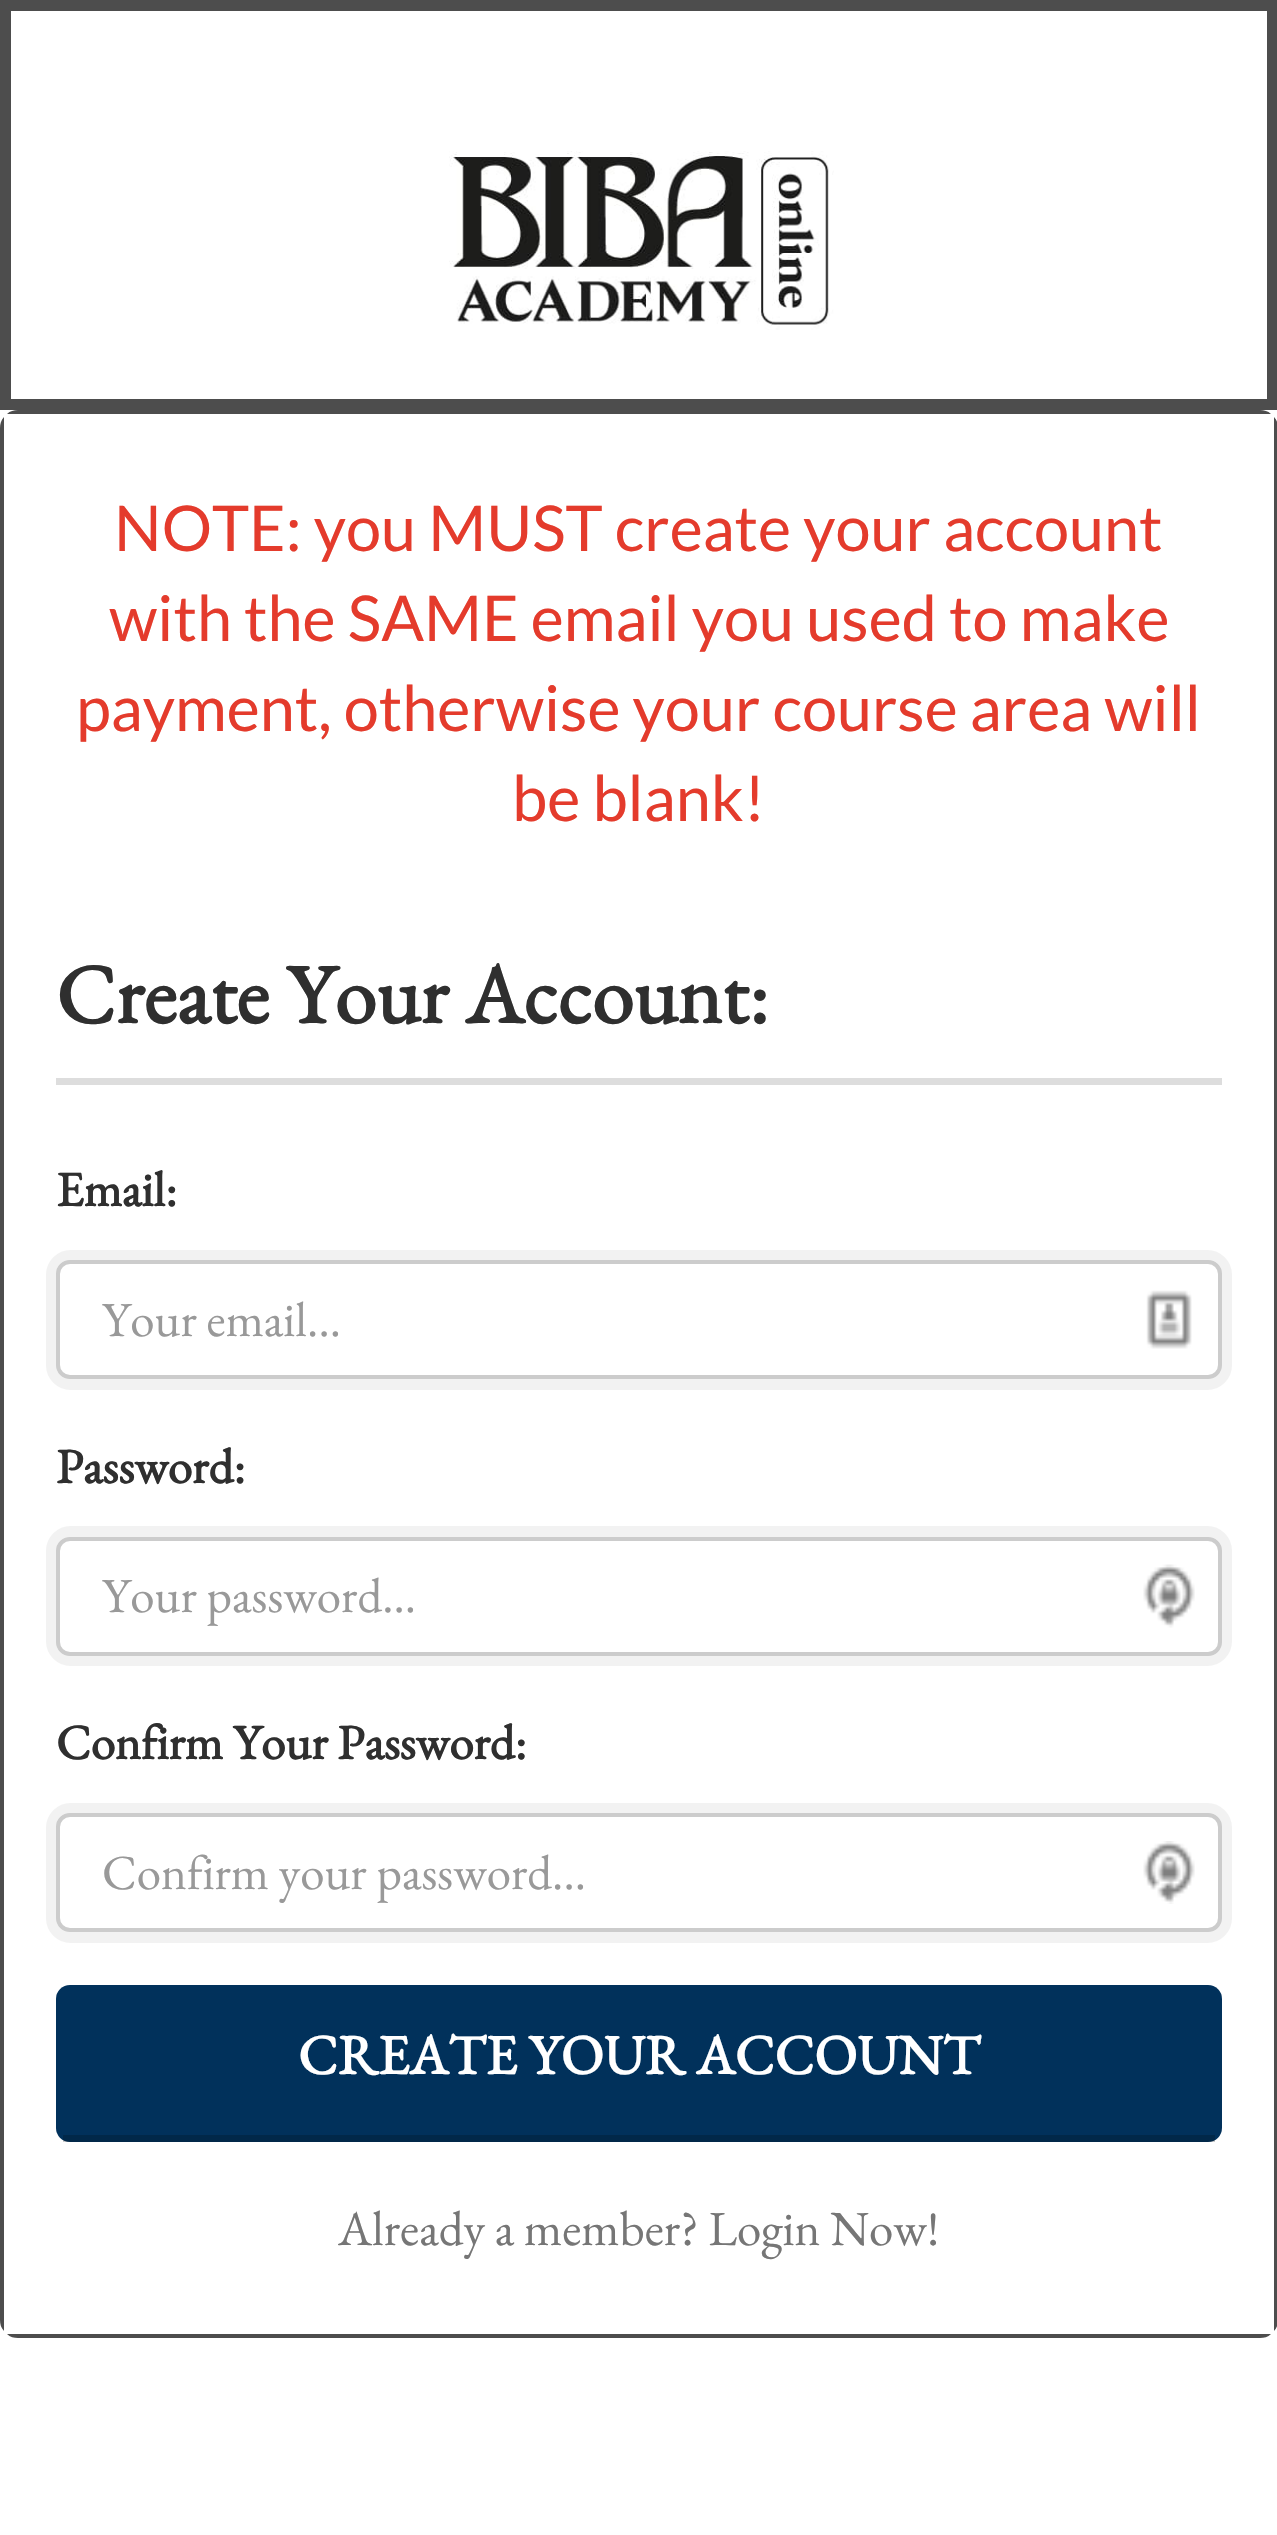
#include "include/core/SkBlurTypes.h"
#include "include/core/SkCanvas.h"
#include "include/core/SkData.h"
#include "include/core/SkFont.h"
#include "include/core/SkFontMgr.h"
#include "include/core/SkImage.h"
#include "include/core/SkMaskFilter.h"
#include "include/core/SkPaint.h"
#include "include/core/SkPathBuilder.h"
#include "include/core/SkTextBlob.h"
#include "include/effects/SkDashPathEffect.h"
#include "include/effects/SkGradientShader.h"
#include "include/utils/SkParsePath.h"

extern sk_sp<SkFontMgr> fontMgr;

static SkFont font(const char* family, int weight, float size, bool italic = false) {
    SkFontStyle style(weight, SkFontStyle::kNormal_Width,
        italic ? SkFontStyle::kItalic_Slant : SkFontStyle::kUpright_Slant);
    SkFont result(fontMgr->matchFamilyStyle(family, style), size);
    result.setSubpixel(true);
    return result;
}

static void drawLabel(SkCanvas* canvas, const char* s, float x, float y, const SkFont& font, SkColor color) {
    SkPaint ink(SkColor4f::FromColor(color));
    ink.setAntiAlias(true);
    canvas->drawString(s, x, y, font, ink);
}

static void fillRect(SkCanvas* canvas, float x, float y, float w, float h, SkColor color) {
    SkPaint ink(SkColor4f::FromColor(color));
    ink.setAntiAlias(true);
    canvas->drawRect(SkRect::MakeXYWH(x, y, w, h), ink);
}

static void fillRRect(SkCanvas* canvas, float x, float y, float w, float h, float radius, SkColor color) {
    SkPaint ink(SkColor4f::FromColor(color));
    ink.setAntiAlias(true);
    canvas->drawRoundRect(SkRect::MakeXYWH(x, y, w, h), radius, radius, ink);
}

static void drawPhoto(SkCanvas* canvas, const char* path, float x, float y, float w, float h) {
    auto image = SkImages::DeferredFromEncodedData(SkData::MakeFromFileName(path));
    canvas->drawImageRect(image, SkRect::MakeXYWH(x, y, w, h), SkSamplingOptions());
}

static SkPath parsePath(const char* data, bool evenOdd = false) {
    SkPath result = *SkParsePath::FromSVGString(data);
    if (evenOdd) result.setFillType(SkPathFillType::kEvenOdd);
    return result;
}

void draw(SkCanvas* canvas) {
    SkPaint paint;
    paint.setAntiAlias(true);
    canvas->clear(0xFFFFFFFF);
    paint.setStroke(true);
    paint.setStrokeWidth(11);
    paint.setColor(0xFF4D4D4D);
    canvas->drawRect(SkRect::MakeXYWH(5.5f, 5.5f, 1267, 399), paint);
    drawPhoto(canvas, "assets/img1.png", 449, 151, 385, 179);
    paint.setStroke(false);
    canvas->drawPath(parsePath("M0 428V2320C0 2324 1 2328 4 2331V417C1 420 0 424 0 428ZM18 410C14 410 10 411 7 414H1271C1268 411 1264 410 1260 410ZM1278 428C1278 424 1277 420 1274 417V2331C1277 2328 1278 2324 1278 2320ZM1260 2338C1264 2338 1268 2337 1271 2334H7C10 2337 14 2338 18 2338Z", true), paint);
    SkFont font1 = font("Lato", 400, 63);
    drawLabel(canvas, "NOTE: you MUST create your account", 114, 551, font1, 0xFFE43B2C);
    drawLabel(canvas, "with the SAME email you used to make", 109, 641, font1, 0xFFE43B2C);
    drawLabel(canvas, "payment, otherwise your course area will", 76, 731, font1, 0xFFE43B2C);
    drawLabel(canvas, "be blank!", 512, 821, font1, 0xFFE43B2C);
    fillRect(canvas, 56, 1078, 1166, 7, 0xFFDDDDDD);
    SkFont font2 = font("EB Garamond", 700, 84);
    drawLabel(canvas, "Create Your Account:", 56, 1023, font2, 0xFF2F2F2F);
    SkFont font3 = font("EB Garamond", 700, 49);
    drawLabel(canvas, "Email:", 56, 1206, font3, 0xFF2F2F2F);
    paint.setStroke(true);
    paint.setColor(0xFFF2F2F2);
    canvas->drawRoundRect(SkRect::MakeXYWH(51.5f, 1255.5f, 1175, 129), 19.5f, 19.5f, paint);
    fillRRect(canvas, 56, 1260, 1166, 119, 14, 0xFFFFFFFF);
    drawPhoto(canvas, "assets/img2.png", 1146, 1290, 46, 59);
    paint.setStrokeWidth(4);
    paint.setColor(0x33000000);
    canvas->drawRoundRect(SkRect::MakeXYWH(58, 1262, 1162, 115), 12, 12, paint);
    SkFont font4 = font("EB Garamond", 400, 49);
    drawLabel(canvas, "Your email...", 102, 1336, font4, 0xFF999999);
    drawLabel(canvas, "Password:", 56, 1483, font3, 0xFF2F2F2F);
    paint.setStrokeWidth(11);
    paint.setColor(0xFFF2F2F2);
    canvas->drawRoundRect(SkRect::MakeXYWH(51.5f, 1531.5f, 1175, 129), 19.5f, 19.5f, paint);
    fillRRect(canvas, 56, 1537, 1166, 119, 14, 0xFFFFFFFF);
    drawPhoto(canvas, "assets/img3.png", 1143, 1564, 52, 64);
    paint.setStrokeWidth(4);
    paint.setColor(0x33000000);
    canvas->drawRoundRect(SkRect::MakeXYWH(58, 1539, 1162, 115), 12, 12, paint);
    drawLabel(canvas, "Your password...", 102, 1612, font4, 0xFF999999);
    drawLabel(canvas, "Confirm Your Password:", 56, 1759, font3, 0xFF2F2F2F);
    paint.setStrokeWidth(11);
    paint.setColor(0xFFF2F2F2);
    canvas->drawRoundRect(SkRect::MakeXYWH(51.5f, 1808.5f, 1175, 129), 19.5f, 19.5f, paint);
    fillRRect(canvas, 56, 1813, 1166, 119, 14, 0xFFFFFFFF);
    drawPhoto(canvas, "assets/img4.png", 1143, 1841, 52, 63);
    paint.setStrokeWidth(4);
    paint.setColor(0x33000000);
    canvas->drawRoundRect(SkRect::MakeXYWH(58, 1815, 1162, 115), 12, 12, paint);
    drawLabel(canvas, "Confirm your password...", 102, 1889, font4, 0xFF999999);
    fillRRect(canvas, 56, 1985, 1166, 157, 14, 0xFF01315B);
    fillRect(canvas, 63, 2135, 1152, 7, 0x33000000);
    SkFont font5 = font("EB Garamond", 700, 56);
    drawLabel(canvas, "CREATE YOUR ACCOUNT", 298, 2074, font5, 0xFFFFFFFF);
    drawLabel(canvas, "Already a member? Login Now!", 338, 2245, font4, 0xFF767676);
}
